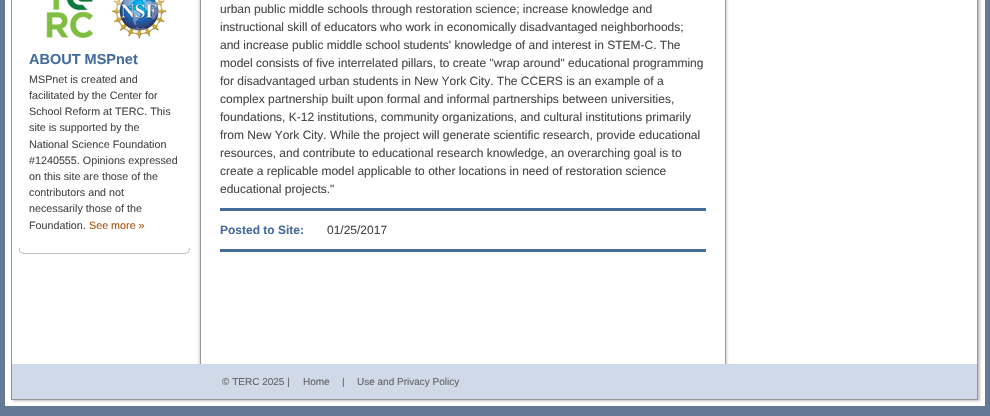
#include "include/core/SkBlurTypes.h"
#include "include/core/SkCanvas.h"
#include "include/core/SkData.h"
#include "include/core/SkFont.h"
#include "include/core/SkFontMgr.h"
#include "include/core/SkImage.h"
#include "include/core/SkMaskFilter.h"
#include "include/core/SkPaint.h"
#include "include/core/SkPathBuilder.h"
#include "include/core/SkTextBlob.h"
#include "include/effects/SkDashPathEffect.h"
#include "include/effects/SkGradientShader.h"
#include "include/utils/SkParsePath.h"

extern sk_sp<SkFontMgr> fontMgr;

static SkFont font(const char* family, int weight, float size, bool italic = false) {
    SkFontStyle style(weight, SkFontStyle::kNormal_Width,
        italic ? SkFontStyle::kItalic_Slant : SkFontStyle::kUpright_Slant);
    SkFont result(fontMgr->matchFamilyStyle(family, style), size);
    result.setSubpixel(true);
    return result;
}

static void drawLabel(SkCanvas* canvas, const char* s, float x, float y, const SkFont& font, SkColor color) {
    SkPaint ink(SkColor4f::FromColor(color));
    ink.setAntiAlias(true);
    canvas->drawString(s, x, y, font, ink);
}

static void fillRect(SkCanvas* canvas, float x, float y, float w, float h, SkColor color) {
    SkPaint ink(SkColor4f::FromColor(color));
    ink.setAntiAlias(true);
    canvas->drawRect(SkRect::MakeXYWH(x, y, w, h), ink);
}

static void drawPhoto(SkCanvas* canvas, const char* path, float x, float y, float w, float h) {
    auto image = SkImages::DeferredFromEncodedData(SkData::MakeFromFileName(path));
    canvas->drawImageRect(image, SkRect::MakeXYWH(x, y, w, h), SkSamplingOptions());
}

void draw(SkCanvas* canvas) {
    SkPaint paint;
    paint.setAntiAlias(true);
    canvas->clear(0xFF647995);
    fillRect(canvas, 5, 0, 980, 406, 0xFFFFFFFF);
    drawPhoto(canvas, "assets/img1.png", 11, 0, 971, 364);
    drawPhoto(canvas, "assets/img2.png", 197, 0, 532, 364);
    drawPhoto(canvas, "assets/img3.png", 19, 248, 171, 6);
    drawPhoto(canvas, "assets/img4.png", 46, 0, 47, 38);
    drawPhoto(canvas, "assets/img5.png", 111, 0, 56, 39);
    SkFont font1 = font("Liberation Sans", 700, 14.5f);
    drawLabel(canvas, "ABOUT MSPnet", 29, 64, font1, 0xFF466C9E);
    SkFont font2 = font("Liberation Sans", 400, 10.75f);
    drawLabel(canvas, "MSPnet is created and", 29, 83, font2, 0xFF474747);
    drawLabel(canvas, "facilitated by the Center for", 29, 99, font2, 0xFF474747);
    drawLabel(canvas, "School Reform at TERC. This", 29, 115, font2, 0xFF474747);
    drawLabel(canvas, "site is supported by the", 29, 131, font2, 0xFF474747);
    drawLabel(canvas, "National Science Foundation", 29, 148, font2, 0xFF474747);
    drawLabel(canvas, "#1240555. Opinions expressed", 29, 164, font2, 0xFF474747);
    drawLabel(canvas, "on this site are those of the", 29, 180, font2, 0xFF474747);
    drawLabel(canvas, "contributors and not", 29, 196, font2, 0xFF474747);
    drawLabel(canvas, "necessarily those of the", 29, 212, font2, 0xFF474747);
    drawLabel(canvas, "Foundation.", 29, 229, font2, 0xFF474747);
    drawLabel(canvas, "See more »", 89, 229, font2, 0xFFA95309);
    SkFont font3 = font("Liberation Sans", 400, 12);
    drawLabel(canvas, "urban public middle schools through restoration science; increase knowledge and", 220, 13, font3, 0xFF474747);
    drawLabel(canvas, "instructional skill of educators who work in economically disadvantaged neighborhoods;", 220, 31, font3, 0xFF474747);
    drawLabel(canvas, "and increase public middle school students' knowledge of and interest in STEM-C. The", 220, 49, font3, 0xFF474747);
    drawLabel(canvas, "model consists of five interrelated pillars, to create \"wrap around\" educational programming", 220, 67, font3, 0xFF474747);
    drawLabel(canvas, "for disadvantaged urban students in New York City. The CCERS is an example of a", 220, 85, font3, 0xFF474747);
    drawLabel(canvas, "complex partnership built upon formal and informal partnerships between universities,", 220, 103, font3, 0xFF474747);
    drawLabel(canvas, "foundations, K-12 institutions, community organizations, and cultural institutions primarily", 220, 121, font3, 0xFF474747);
    drawLabel(canvas, "from New York City. While the project will generate scientific research, provide educational", 220, 139, font3, 0xFF474747);
    drawLabel(canvas, "resources, and contribute to educational research knowledge, an overarching goal is to", 220, 157, font3, 0xFF474747);
    drawLabel(canvas, "create a replicable model applicable to other locations in need of restoration science", 220, 175, font3, 0xFF474747);
    drawLabel(canvas, "educational projects.\"", 220, 193, font3, 0xFF474747);
    fillRect(canvas, 220, 208, 486, 3, 0xFF466C9E);
    fillRect(canvas, 220, 249, 486, 3, 0xFF466C9E);
    SkFont font4 = font("Liberation Sans", 700, 12);
    drawLabel(canvas, "Posted to Site:", 220, 234, font4, 0xFF466C9E);
    drawLabel(canvas, "01/25/2017", 327, 234, font3, 0xFF474747);
    drawPhoto(canvas, "assets/img6.png", 11, 364, 971, 39);
    fillRect(canvas, 12, 364, 965, 35, 0xFFCFD9E7);
    SkFont font5 = font("Liberation Sans", 400, 10);
    drawLabel(canvas, "© TERC 2025 |", 222, 385, font5, 0xFF626262);
    drawLabel(canvas, "Home", 303, 385, font5, 0xFF626262);
    drawLabel(canvas, "|", 342, 385, font5, 0xFF626262);
    drawLabel(canvas, "Use and Privacy Policy", 357, 385, font5, 0xFF626262);
}
